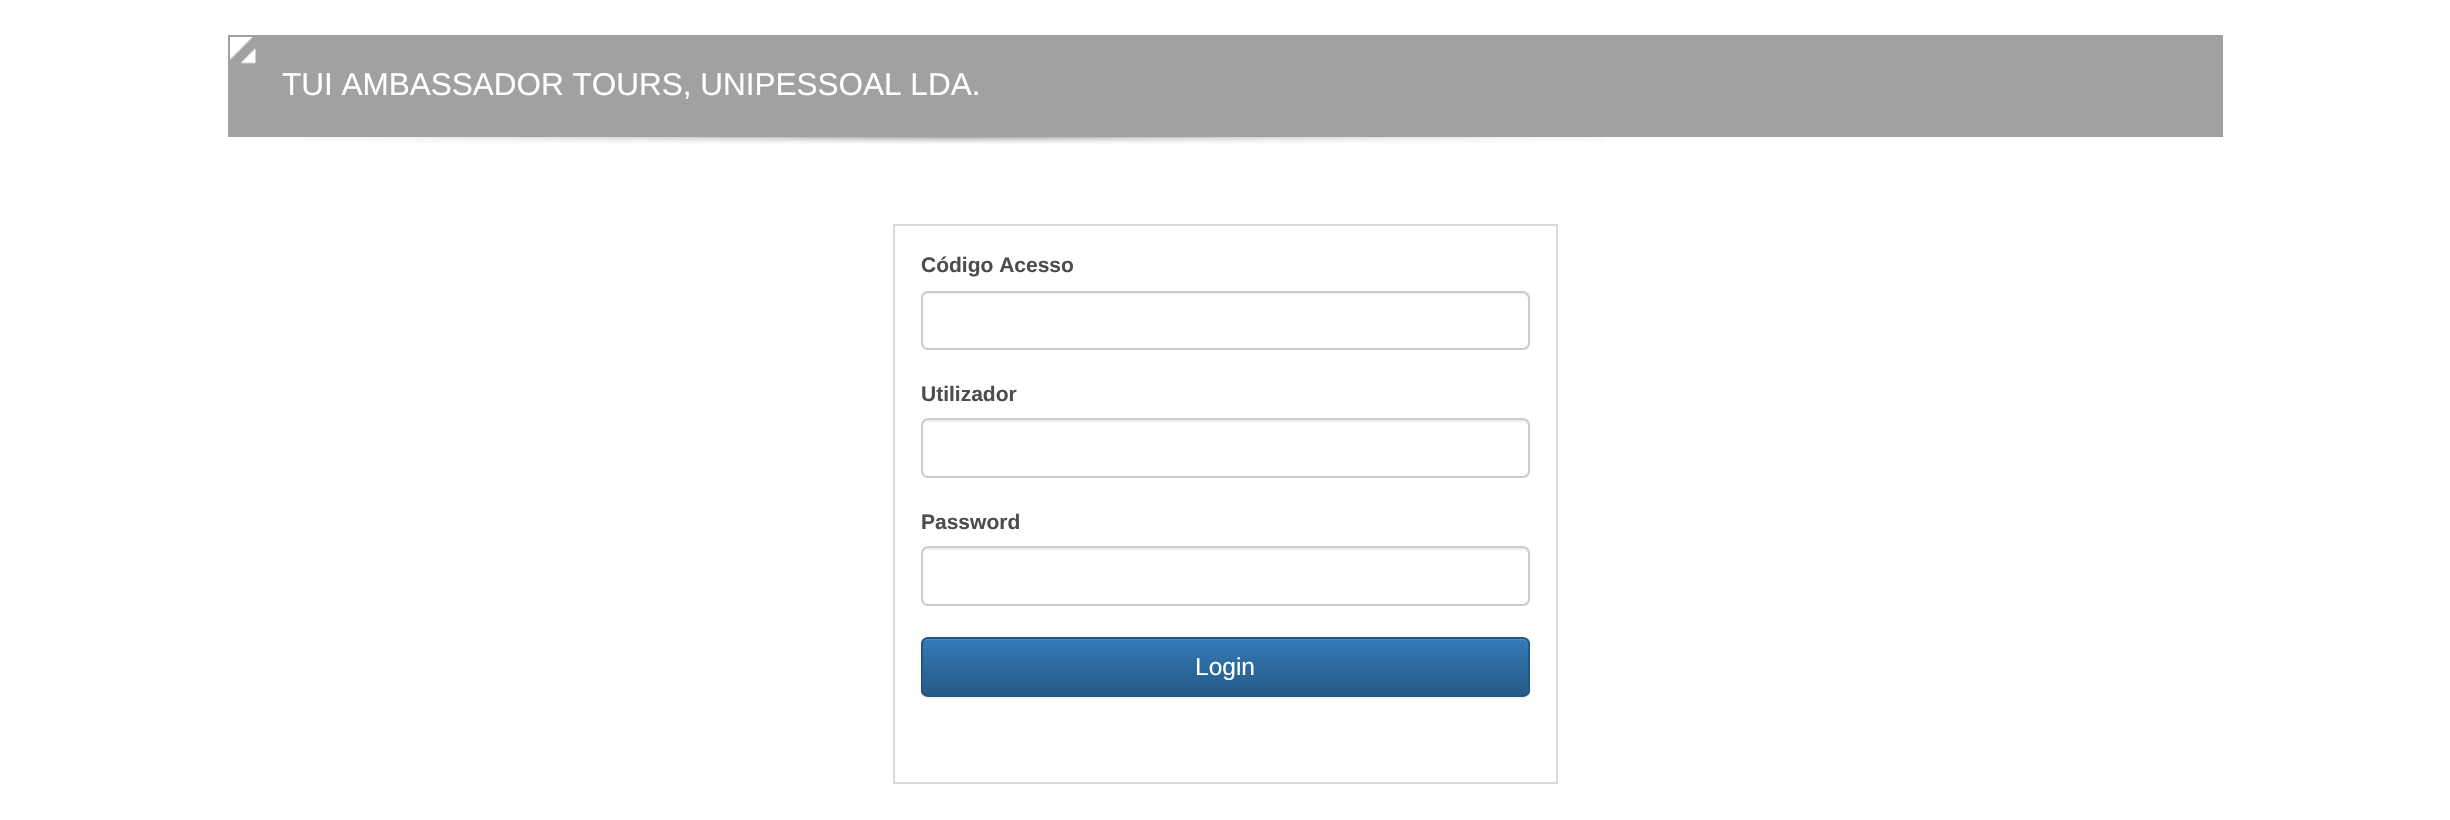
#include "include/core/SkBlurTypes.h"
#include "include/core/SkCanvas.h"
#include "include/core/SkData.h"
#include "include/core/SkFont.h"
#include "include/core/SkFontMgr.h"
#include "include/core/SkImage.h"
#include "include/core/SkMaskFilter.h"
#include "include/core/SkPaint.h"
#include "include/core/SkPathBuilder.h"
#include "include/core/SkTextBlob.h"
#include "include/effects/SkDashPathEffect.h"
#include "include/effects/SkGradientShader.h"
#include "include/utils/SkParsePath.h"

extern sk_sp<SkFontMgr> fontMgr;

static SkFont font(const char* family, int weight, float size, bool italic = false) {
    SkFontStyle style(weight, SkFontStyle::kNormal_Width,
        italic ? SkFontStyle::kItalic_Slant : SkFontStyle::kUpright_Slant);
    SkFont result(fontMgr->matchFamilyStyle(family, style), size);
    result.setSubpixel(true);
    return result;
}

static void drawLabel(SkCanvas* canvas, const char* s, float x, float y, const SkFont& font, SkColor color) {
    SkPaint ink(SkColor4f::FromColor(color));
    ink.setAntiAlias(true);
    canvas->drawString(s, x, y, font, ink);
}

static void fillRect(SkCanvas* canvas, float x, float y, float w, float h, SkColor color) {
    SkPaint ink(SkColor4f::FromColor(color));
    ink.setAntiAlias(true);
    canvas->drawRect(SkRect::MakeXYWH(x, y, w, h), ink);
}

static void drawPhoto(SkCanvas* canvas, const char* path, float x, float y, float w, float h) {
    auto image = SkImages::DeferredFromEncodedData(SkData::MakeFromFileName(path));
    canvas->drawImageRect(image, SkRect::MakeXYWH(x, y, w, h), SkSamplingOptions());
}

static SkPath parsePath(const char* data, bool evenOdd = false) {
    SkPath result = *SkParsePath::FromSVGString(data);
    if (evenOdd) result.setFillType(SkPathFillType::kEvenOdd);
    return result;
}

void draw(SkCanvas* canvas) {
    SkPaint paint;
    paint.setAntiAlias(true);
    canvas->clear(0xFFFFFFFF);
    fillRect(canvas, 230, 37, 1991, 98, 0xFFA1A1A1);
    drawPhoto(canvas, "assets/img1.png", 230, 37, 26, 27);
    paint.setStroke(true);
    paint.setStrokeWidth(2);
    paint.setColor(0xFFA1A1A1);
    canvas->drawRect(SkRect::MakeXYWH(229, 36, 1993, 100), paint);
    SkFont font1 = font("Liberation Sans", 400, 31.5f);
    drawLabel(canvas, "TUI AMBASSADOR TOURS, UNIPESSOAL LDA.", 282, 95, font1, 0xFFFFFFFF);
    drawPhoto(canvas, "assets/img2.png", 304, 137, 1302, 7);
    paint.setColor(0xFFD9D9D9);
    canvas->drawRect(SkRect::MakeXYWH(894, 225, 663, 558), paint);
    SkFont font2 = font("Liberation Sans", 700, 21);
    drawLabel(canvas, "Código Acesso", 921, 272, font2, 0xFF4D4D4D);
    paint.setStroke(false);
    paint.setColor(0xFFECECEC);
    canvas->drawPath(parsePath("M928 294H1522C1525 294 1528 296 1528 299C1528 296 1527 292 1523 292H927C923 292 922 296 922 299C922 296 925 294 928 294Z"), paint);
    paint.setStroke(true);
    paint.setColor(0xFFCCCCCC);
    canvas->drawRoundRect(SkRect::MakeXYWH(922, 292, 607, 57), 6, 6, paint);
    drawLabel(canvas, "Utilizador", 921, 401, font2, 0xFF4D4D4D);
    paint.setStroke(false);
    paint.setColor(0xFFECECEC);
    canvas->drawPath(parsePath("M928 422H1522C1525 422 1528 424 1528 427C1528 424 1527 420 1523 420H927C923 420 922 424 922 427C922 424 925 422 928 422Z"), paint);
    paint.setStroke(true);
    paint.setColor(0xFFCCCCCC);
    canvas->drawRoundRect(SkRect::MakeXYWH(922, 419, 607, 58), 6, 6, paint);
    drawLabel(canvas, "Password", 921, 529, font2, 0xFF4D4D4D);
    paint.setStroke(false);
    paint.setColor(0xFFECECEC);
    canvas->drawPath(parsePath("M928 550H1522C1525 550 1528 552 1528 555C1528 552 1527 548 1523 548H927C923 548 922 552 922 555C922 552 925 550 928 550Z"), paint);
    paint.setStroke(true);
    paint.setColor(0xFFCCCCCC);
    canvas->drawRoundRect(SkRect::MakeXYWH(922, 547, 607, 58), 6, 6, paint);
    paint.setStroke(false);
    paint.setColor(0x12000000);
    paint.setMaskFilter(SkMaskFilter::MakeBlur(kNormal_SkBlurStyle, 1));
    canvas->drawRoundRect(SkRect::MakeXYWH(921, 639, 609, 59), 7, 7, paint);
    paint.setMaskFilter(nullptr);
    canvas->save();
    canvas->clipPath(parsePath("M928 637H1523C1527 637 1530 640 1530 644V690C1530 694 1527 697 1523 697H928C924 697 921 694 921 690V644C921 640 924 637 928 637Z"), true);
    {
        const SkColor colors[] = {0xFF337AB7, 0xFF265A88};
        const float stops[] = {0, 1};
        const SkPoint ends[] = {{1225, 639}, {1225, 695}};
        paint.setShader(SkGradientShader::MakeLinear(ends, colors, stops, 2, SkTileMode::kClamp));
        paint.setAlpha(255);
    }
    canvas->drawRect(SkRect::MakeXYWH(921, 639, 609, 56), paint);
    canvas->restore();
    paint.setShader(nullptr);
    paint.setColor(0xFF528EC2);
    canvas->drawPath(parsePath("M928 640H1522C1525 640 1528 643 1528 646C1528 643 1527 639 1523 639H927C923 639 922 643 922 646C922 643 925 640 928 640Z"), paint);
    paint.setStroke(true);
    paint.setColor(0xFF245580);
    canvas->drawRoundRect(SkRect::MakeXYWH(922, 638, 607, 58), 6, 6, paint);
    SkFont font3 = font("Liberation Sans", 400, 24.5f);
    drawLabel(canvas, "Login", 1195, 675, font3, 0xFFFFFFFF);
}
